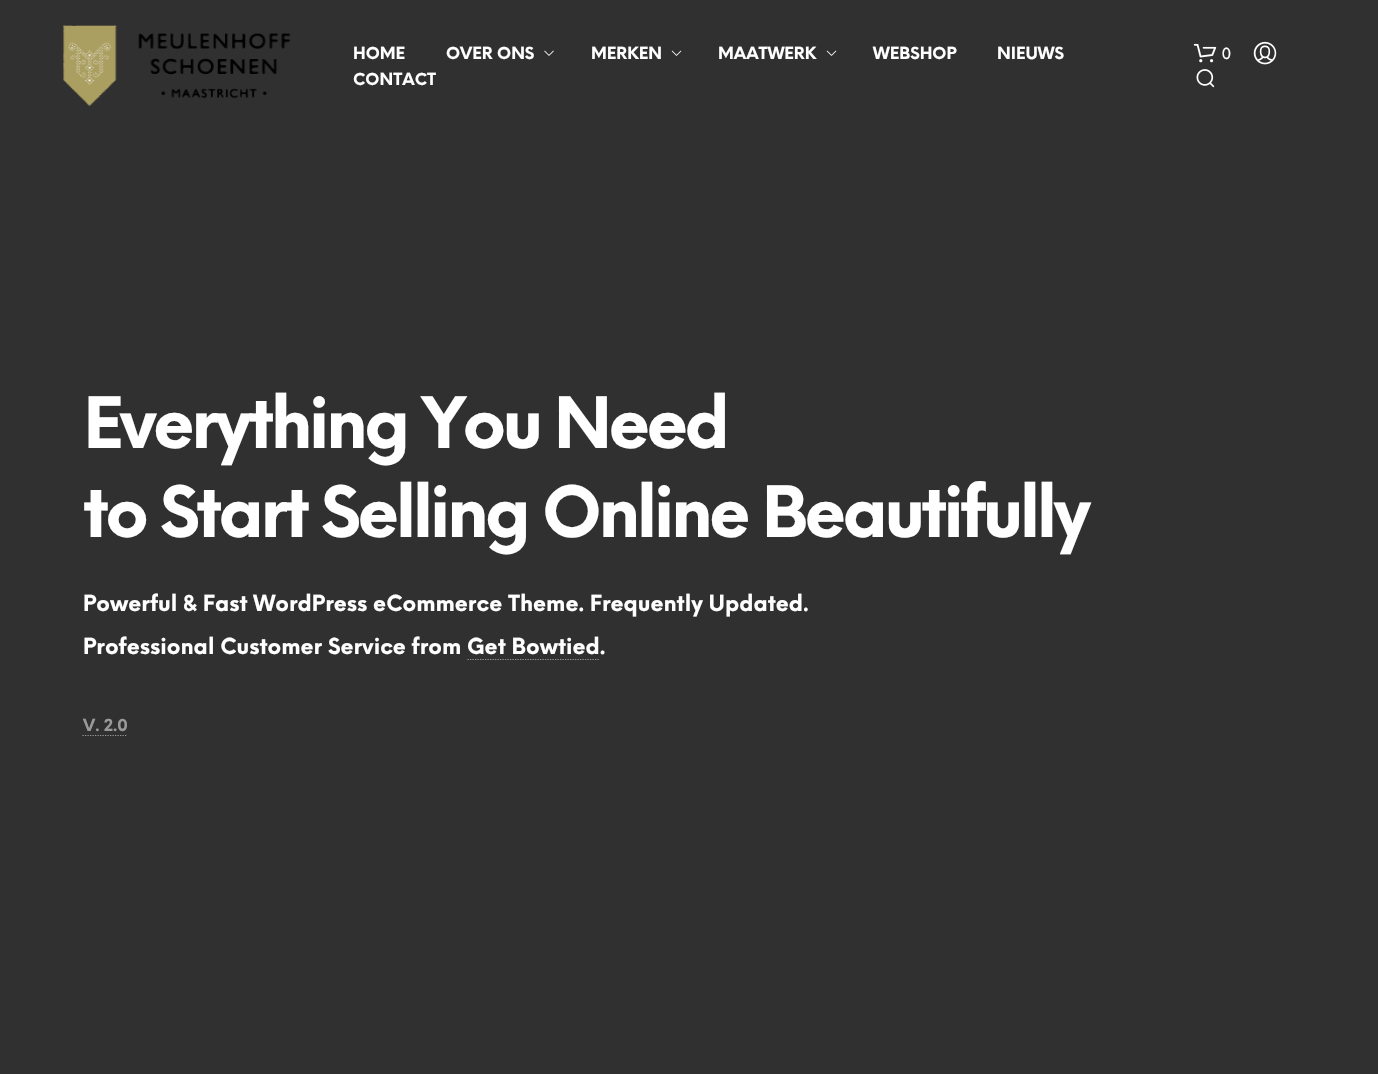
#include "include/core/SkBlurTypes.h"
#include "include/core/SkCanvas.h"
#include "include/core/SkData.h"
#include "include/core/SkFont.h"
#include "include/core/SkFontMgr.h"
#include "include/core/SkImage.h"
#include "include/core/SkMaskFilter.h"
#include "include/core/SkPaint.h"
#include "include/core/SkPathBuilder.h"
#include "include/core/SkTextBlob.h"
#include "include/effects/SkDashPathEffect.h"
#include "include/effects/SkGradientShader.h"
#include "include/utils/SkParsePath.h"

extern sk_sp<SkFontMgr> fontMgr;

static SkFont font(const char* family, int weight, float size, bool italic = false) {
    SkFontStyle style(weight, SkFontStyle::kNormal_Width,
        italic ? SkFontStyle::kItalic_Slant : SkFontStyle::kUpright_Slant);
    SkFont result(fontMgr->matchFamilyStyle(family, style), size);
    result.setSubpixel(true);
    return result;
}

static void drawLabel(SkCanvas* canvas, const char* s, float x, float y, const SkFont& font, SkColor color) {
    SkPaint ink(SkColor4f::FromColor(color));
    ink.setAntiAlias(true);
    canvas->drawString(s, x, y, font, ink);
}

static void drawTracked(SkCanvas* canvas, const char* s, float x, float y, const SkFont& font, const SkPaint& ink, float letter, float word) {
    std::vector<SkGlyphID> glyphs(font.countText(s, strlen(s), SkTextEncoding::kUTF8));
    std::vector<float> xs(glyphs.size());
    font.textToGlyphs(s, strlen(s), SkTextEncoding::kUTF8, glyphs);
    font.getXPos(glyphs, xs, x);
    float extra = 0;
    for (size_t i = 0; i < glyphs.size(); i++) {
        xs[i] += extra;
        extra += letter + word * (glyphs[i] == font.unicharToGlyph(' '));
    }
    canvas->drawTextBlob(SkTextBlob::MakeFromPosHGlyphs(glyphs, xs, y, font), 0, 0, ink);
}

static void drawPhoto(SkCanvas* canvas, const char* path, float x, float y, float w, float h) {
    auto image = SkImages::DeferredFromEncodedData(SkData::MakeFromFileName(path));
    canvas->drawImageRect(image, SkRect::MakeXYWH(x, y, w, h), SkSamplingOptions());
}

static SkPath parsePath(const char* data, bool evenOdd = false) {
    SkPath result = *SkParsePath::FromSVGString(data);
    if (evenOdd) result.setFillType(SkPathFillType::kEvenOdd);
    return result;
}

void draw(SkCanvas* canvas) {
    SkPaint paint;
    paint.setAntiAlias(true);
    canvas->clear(0xFF303030);
    drawPhoto(canvas, "assets/img1.png", 62, 25, 229, 82);
    SkFont font1 = font("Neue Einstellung", 700, 16.25f);
    drawLabel(canvas, "HOME", 353, 59, font1, 0xFFFFFFFF);
    drawLabel(canvas, "OVER ONS", 446, 59, font1, 0xFFFFFFFF);
    drawPhoto(canvas, "assets/img2.png", 544, 50, 10, 6);
    drawLabel(canvas, "MERKEN", 591, 59, font1, 0xFFFFFFFF);
    drawPhoto(canvas, "assets/img3.png", 671, 50, 11, 6);
    drawLabel(canvas, "MAATWERK", 718, 59, font1, 0xFFFFFFFF);
    drawPhoto(canvas, "assets/img3.png", 826, 50, 11, 6);
    drawLabel(canvas, "WEBSHOP", 873, 59, font1, 0xFFFFFFFF);
    drawLabel(canvas, "NIEUWS", 997, 59, font1, 0xFFFFFFFF);
    drawLabel(canvas, "CONTACT", 353, 85, font1, 0xFFFFFFFF);
    drawPhoto(canvas, "assets/img4.png", 1193, 43, 24, 20);
    SkFont font2 = font("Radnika", 400, 16.25f);
    drawLabel(canvas, "0", 1222, 59, font2, 0xFFFFFFFF);
    drawPhoto(canvas, "assets/img5.png", 1253, 41, 24, 24);
    drawPhoto(canvas, "assets/img6.png", 1196, 69, 19, 19);
    SkFont font3 = font("Neue Einstellung", 700, 69);
    paint.setColor(0xFFFFFFFF);
    drawTracked(canvas, "Everything You Need", 83, 448, font3, paint, -3.75f, 0);
    drawTracked(canvas, "to Start Selling Online Beautifully", 83, 537, font3, paint, -3.75f, 0);
    SkFont font4 = font("Neue Einstellung", 700, 21.55f);
    drawLabel(canvas, "Powerful & Fast WordPress eCommerce Theme. Frequently Updated.", 83, 611, font4, 0xFFFFFFFF);
    drawLabel(canvas, "Professional Customer Service from Get Bowtied.", 83, 654, font4, 0xFFFFFFFF);
    paint.setStroke(true);
    paint.setStrokeWidth(1.2f);
    paint.setColor(0xFF999999);
    paint.setPathEffect(SkDashPathEffect::Make({{1.25f, 1.25f}}, 0));
    canvas->drawPath(parsePath("M467.5 659.5H600"), paint);
    paint.setPathEffect(nullptr);
    drawLabel(canvas, "V. 2.0", 83, 731, font1, 0xFF999999);
    paint.setPathEffect(SkDashPathEffect::Make({{1.25f, 1.25f}}, 0));
    canvas->drawPath(parsePath("M82.5 735.5H127.5"), paint);
    paint.setPathEffect(nullptr);
}
